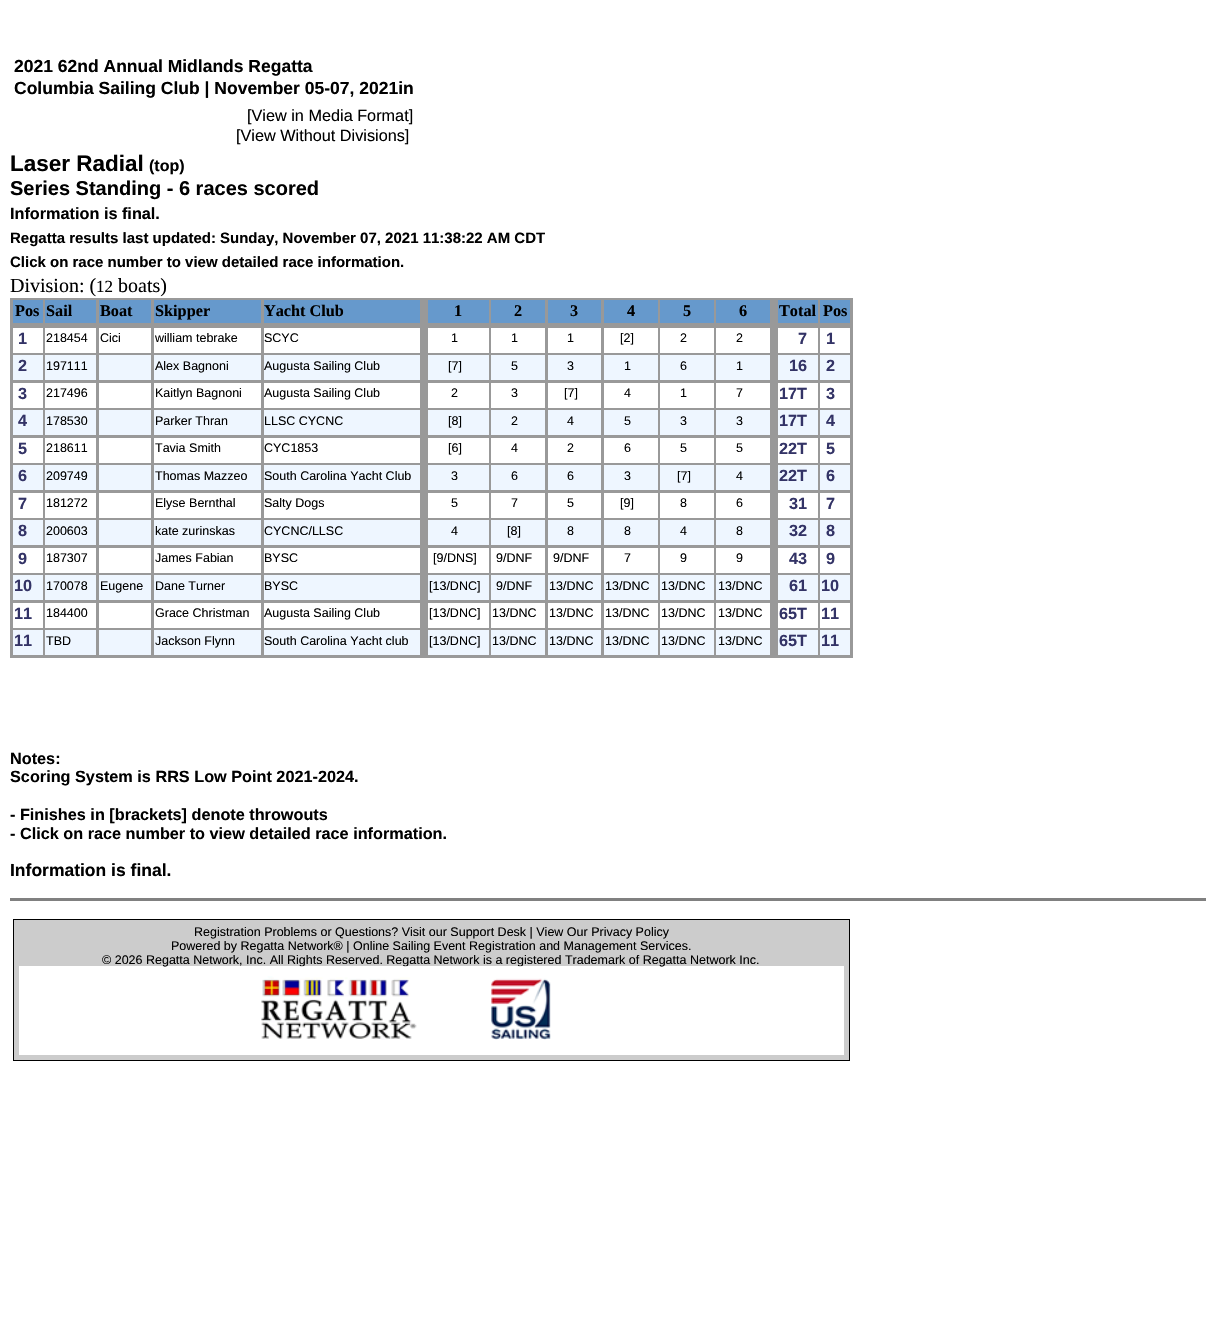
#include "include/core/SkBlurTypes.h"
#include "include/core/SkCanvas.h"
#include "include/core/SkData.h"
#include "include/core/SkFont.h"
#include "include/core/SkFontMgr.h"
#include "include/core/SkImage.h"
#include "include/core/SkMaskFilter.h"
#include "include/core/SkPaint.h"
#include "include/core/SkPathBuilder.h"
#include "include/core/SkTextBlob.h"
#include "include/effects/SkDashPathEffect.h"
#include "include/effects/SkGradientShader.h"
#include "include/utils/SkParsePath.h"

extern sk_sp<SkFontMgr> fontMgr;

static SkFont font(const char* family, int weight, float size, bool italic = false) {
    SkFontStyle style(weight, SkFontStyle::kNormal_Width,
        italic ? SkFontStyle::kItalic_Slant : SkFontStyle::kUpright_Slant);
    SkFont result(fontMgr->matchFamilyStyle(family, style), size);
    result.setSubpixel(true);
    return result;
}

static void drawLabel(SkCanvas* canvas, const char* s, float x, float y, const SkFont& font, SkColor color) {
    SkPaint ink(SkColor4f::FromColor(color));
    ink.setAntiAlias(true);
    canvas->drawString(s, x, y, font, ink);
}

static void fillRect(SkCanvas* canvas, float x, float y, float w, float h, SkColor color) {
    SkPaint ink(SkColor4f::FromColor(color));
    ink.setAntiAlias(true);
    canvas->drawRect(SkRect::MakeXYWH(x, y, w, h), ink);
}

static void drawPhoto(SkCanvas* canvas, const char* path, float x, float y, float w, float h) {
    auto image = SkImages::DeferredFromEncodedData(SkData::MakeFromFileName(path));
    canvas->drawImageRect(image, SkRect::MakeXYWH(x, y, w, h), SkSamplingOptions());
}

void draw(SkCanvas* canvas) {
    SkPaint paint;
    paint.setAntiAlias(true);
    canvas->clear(0xFFFFFFFF);
    SkFont font1 = font("Liberation Sans", 700, 17.5f);
    drawLabel(canvas, "2021 62nd Annual Midlands Regatta", 14, 72, font1, 0xFF000000);
    drawLabel(canvas, "Columbia Sailing Club | November 05-07, 2021in", 14, 94, font1, 0xFF000000);
    SkFont font2 = font("Liberation Sans", 400, 16.25f);
    drawLabel(canvas, "[View in Media Format]", 247, 121, font2, 0xFF000000);
    drawLabel(canvas, "[View Without Divisions]", 236, 141, font2, 0xFF000000);
    SkFont font3 = font("Liberation Sans", 700, 22.5f);
    drawLabel(canvas, "Laser Radial", 10, 171, font3, 0xFF000000);
    SkFont font4 = font("Liberation Sans", 700, 16);
    drawLabel(canvas, "(top)", 149, 171, font4, 0xFF000000);
    SkFont font5 = font("Liberation Sans", 700, 20);
    drawLabel(canvas, "Series Standing - 6 races scored", 10, 195, font5, 0xFF000000);
    SkFont font6 = font("Liberation Sans", 700, 16.25f);
    drawLabel(canvas, "Information is final.", 10, 219, font6, 0xFF000000);
    SkFont font7 = font("Liberation Sans", 700, 15);
    drawLabel(canvas, "Regatta results last updated: Sunday, November 07, 2021 11:38:22 AM CDT", 10, 243, font7, 0xFF000000);
    drawLabel(canvas, "Click on race number to view detailed race information.", 10, 267, font7, 0xFF000000);
    SkFont font8 = font("Liberation Serif", 400, 20);
    drawLabel(canvas, "Division: (", 10, 292, font8, 0xFF000000);
    SkFont font9 = font("Liberation Serif", 400, 17);
    drawLabel(canvas, "12", 96, 292, font9, 0xFF000000);
    drawLabel(canvas, "boats)", 118, 292, font8, 0xFF000000);
    fillRect(canvas, 10, 298, 843, 360, 0xFF999999);
    fillRect(canvas, 13, 300, 30, 23, 0xFF6699CC);
    SkFont font10 = font("Liberation Serif", 700, 16.25f);
    drawLabel(canvas, "Pos", 15, 316, font10, 0xFF000000);
    fillRect(canvas, 45, 300, 51, 23, 0xFF6699CC);
    drawLabel(canvas, "Sail", 46, 316, font10, 0xFF000000);
    fillRect(canvas, 99, 300, 52, 23, 0xFF6699CC);
    drawLabel(canvas, "Boat", 100, 316, font10, 0xFF000000);
    fillRect(canvas, 154, 300, 107, 23, 0xFF6699CC);
    drawLabel(canvas, "Skipper", 155, 316, font10, 0xFF000000);
    fillRect(canvas, 264, 300, 156, 23, 0xFF6699CC);
    drawLabel(canvas, "Yacht Club", 264, 316, font10, 0xFF000000);
    fillRect(canvas, 428, 300, 61, 23, 0xFF6699CC);
    drawLabel(canvas, "1", 454, 316, font10, 0xFF000000);
    fillRect(canvas, 491, 300, 54, 23, 0xFF6699CC);
    drawLabel(canvas, "2", 514, 316, font10, 0xFF000000);
    fillRect(canvas, 548, 300, 53, 23, 0xFF6699CC);
    drawLabel(canvas, "3", 570, 316, font10, 0xFF000000);
    fillRect(canvas, 604, 300, 54, 23, 0xFF6699CC);
    drawLabel(canvas, "4", 627, 316, font10, 0xFF000000);
    fillRect(canvas, 660, 300, 54, 23, 0xFF6699CC);
    drawLabel(canvas, "5", 683, 316, font10, 0xFF000000);
    fillRect(canvas, 716, 300, 54, 23, 0xFF6699CC);
    drawLabel(canvas, "6", 739, 316, font10, 0xFF000000);
    fillRect(canvas, 778, 300, 40, 23, 0xFF6699CC);
    drawLabel(canvas, "Total", 779, 316, font10, 0xFF000000);
    fillRect(canvas, 820, 300, 30, 23, 0xFF6699CC);
    drawLabel(canvas, "Pos", 823, 316, font10, 0xFF000000);
    fillRect(canvas, 13, 328, 30, 25, 0xFFFFFFFF);
    drawLabel(canvas, "1", 18, 344, font6, 0xFF333366);
    fillRect(canvas, 45, 328, 51, 25, 0xFFFFFFFF);
    SkFont font11 = font("Liberation Sans", 400, 12.5f);
    drawLabel(canvas, "218454", 46, 342, font11, 0xFF000000);
    fillRect(canvas, 99, 328, 52, 25, 0xFFFFFFFF);
    drawLabel(canvas, "Cici", 100, 342, font11, 0xFF000000);
    fillRect(canvas, 154, 328, 107, 25, 0xFFFFFFFF);
    drawLabel(canvas, "william tebrake", 155, 342, font11, 0xFF000000);
    fillRect(canvas, 264, 328, 156, 25, 0xFFFFFFFF);
    drawLabel(canvas, "SCYC", 264, 342, font11, 0xFF000000);
    fillRect(canvas, 428, 328, 61, 25, 0xFFFFFFFF);
    drawLabel(canvas, "1", 451, 342, font11, 0xFF000000);
    fillRect(canvas, 491, 328, 54, 25, 0xFFFFFFFF);
    drawLabel(canvas, "1", 511, 342, font11, 0xFF000000);
    fillRect(canvas, 548, 328, 53, 25, 0xFFFFFFFF);
    drawLabel(canvas, "1", 567, 342, font11, 0xFF000000);
    fillRect(canvas, 604, 328, 54, 25, 0xFFFFFFFF);
    drawLabel(canvas, "[2]", 620, 342, font11, 0xFF000000);
    fillRect(canvas, 660, 328, 54, 25, 0xFFFFFFFF);
    drawLabel(canvas, "2", 680, 342, font11, 0xFF000000);
    fillRect(canvas, 716, 328, 54, 25, 0xFFFFFFFF);
    drawLabel(canvas, "2", 736, 342, font11, 0xFF000000);
    fillRect(canvas, 778, 328, 40, 25, 0xFFFFFFFF);
    drawLabel(canvas, "7", 798, 344, font6, 0xFF333366);
    fillRect(canvas, 820, 328, 30, 25, 0xFFFFFFFF);
    drawLabel(canvas, "1", 826, 344, font6, 0xFF333366);
    fillRect(canvas, 13, 355, 30, 25, 0xFFEEF6FF);
    drawLabel(canvas, "2", 18, 371, font6, 0xFF333366);
    fillRect(canvas, 45, 355, 51, 25, 0xFFEEF6FF);
    drawLabel(canvas, "197111", 46, 370, font11, 0xFF000000);
    fillRect(canvas, 99, 355, 52, 25, 0xFFEEF6FF);
    fillRect(canvas, 154, 355, 107, 25, 0xFFEEF6FF);
    drawLabel(canvas, "Alex Bagnoni", 155, 370, font11, 0xFF000000);
    fillRect(canvas, 264, 355, 156, 25, 0xFFEEF6FF);
    drawLabel(canvas, "Augusta Sailing Club", 264, 370, font11, 0xFF000000);
    fillRect(canvas, 428, 355, 61, 25, 0xFFEEF6FF);
    drawLabel(canvas, "[7]", 448, 370, font11, 0xFF000000);
    fillRect(canvas, 491, 355, 54, 25, 0xFFEEF6FF);
    drawLabel(canvas, "5", 511, 370, font11, 0xFF000000);
    fillRect(canvas, 548, 355, 53, 25, 0xFFEEF6FF);
    drawLabel(canvas, "3", 567, 370, font11, 0xFF000000);
    fillRect(canvas, 604, 355, 54, 25, 0xFFEEF6FF);
    drawLabel(canvas, "1", 624, 370, font11, 0xFF000000);
    fillRect(canvas, 660, 355, 54, 25, 0xFFEEF6FF);
    drawLabel(canvas, "6", 680, 370, font11, 0xFF000000);
    fillRect(canvas, 716, 355, 54, 25, 0xFFEEF6FF);
    drawLabel(canvas, "1", 736, 370, font11, 0xFF000000);
    fillRect(canvas, 778, 355, 40, 25, 0xFFEEF6FF);
    drawLabel(canvas, "16", 789, 371, font6, 0xFF333366);
    fillRect(canvas, 820, 355, 30, 25, 0xFFEEF6FF);
    drawLabel(canvas, "2", 826, 371, font6, 0xFF333366);
    fillRect(canvas, 13, 383, 30, 25, 0xFFFFFFFF);
    drawLabel(canvas, "3", 18, 399, font6, 0xFF333366);
    fillRect(canvas, 45, 383, 51, 25, 0xFFFFFFFF);
    drawLabel(canvas, "217496", 46, 397, font11, 0xFF000000);
    fillRect(canvas, 99, 383, 52, 25, 0xFFFFFFFF);
    fillRect(canvas, 154, 383, 107, 25, 0xFFFFFFFF);
    drawLabel(canvas, "Kaitlyn Bagnoni", 155, 397, font11, 0xFF000000);
    fillRect(canvas, 264, 383, 156, 25, 0xFFFFFFFF);
    drawLabel(canvas, "Augusta Sailing Club", 264, 397, font11, 0xFF000000);
    fillRect(canvas, 428, 383, 61, 25, 0xFFFFFFFF);
    drawLabel(canvas, "2", 451, 397, font11, 0xFF000000);
    fillRect(canvas, 491, 383, 54, 25, 0xFFFFFFFF);
    drawLabel(canvas, "3", 511, 397, font11, 0xFF000000);
    fillRect(canvas, 548, 383, 53, 25, 0xFFFFFFFF);
    drawLabel(canvas, "[7]", 564, 397, font11, 0xFF000000);
    fillRect(canvas, 604, 383, 54, 25, 0xFFFFFFFF);
    drawLabel(canvas, "4", 624, 397, font11, 0xFF000000);
    fillRect(canvas, 660, 383, 54, 25, 0xFFFFFFFF);
    drawLabel(canvas, "1", 680, 397, font11, 0xFF000000);
    fillRect(canvas, 716, 383, 54, 25, 0xFFFFFFFF);
    drawLabel(canvas, "7", 736, 397, font11, 0xFF000000);
    fillRect(canvas, 778, 383, 40, 25, 0xFFFFFFFF);
    drawLabel(canvas, "17T", 779, 399, font6, 0xFF333366);
    fillRect(canvas, 820, 383, 30, 25, 0xFFFFFFFF);
    drawLabel(canvas, "3", 826, 399, font6, 0xFF333366);
    fillRect(canvas, 13, 410, 30, 25, 0xFFEEF6FF);
    drawLabel(canvas, "4", 18, 426, font6, 0xFF333366);
    fillRect(canvas, 45, 410, 51, 25, 0xFFEEF6FF);
    drawLabel(canvas, "178530", 46, 425, font11, 0xFF000000);
    fillRect(canvas, 99, 410, 52, 25, 0xFFEEF6FF);
    fillRect(canvas, 154, 410, 107, 25, 0xFFEEF6FF);
    drawLabel(canvas, "Parker Thran", 155, 425, font11, 0xFF000000);
    fillRect(canvas, 264, 410, 156, 25, 0xFFEEF6FF);
    drawLabel(canvas, "LLSC CYCNC", 264, 425, font11, 0xFF000000);
    fillRect(canvas, 428, 410, 61, 25, 0xFFEEF6FF);
    drawLabel(canvas, "[8]", 448, 425, font11, 0xFF000000);
    fillRect(canvas, 491, 410, 54, 25, 0xFFEEF6FF);
    drawLabel(canvas, "2", 511, 425, font11, 0xFF000000);
    fillRect(canvas, 548, 410, 53, 25, 0xFFEEF6FF);
    drawLabel(canvas, "4", 567, 425, font11, 0xFF000000);
    fillRect(canvas, 604, 410, 54, 25, 0xFFEEF6FF);
    drawLabel(canvas, "5", 624, 425, font11, 0xFF000000);
    fillRect(canvas, 660, 410, 54, 25, 0xFFEEF6FF);
    drawLabel(canvas, "3", 680, 425, font11, 0xFF000000);
    fillRect(canvas, 716, 410, 54, 25, 0xFFEEF6FF);
    drawLabel(canvas, "3", 736, 425, font11, 0xFF000000);
    fillRect(canvas, 778, 410, 40, 25, 0xFFEEF6FF);
    drawLabel(canvas, "17T", 779, 426, font6, 0xFF333366);
    fillRect(canvas, 820, 410, 30, 25, 0xFFEEF6FF);
    drawLabel(canvas, "4", 826, 426, font6, 0xFF333366);
    fillRect(canvas, 13, 438, 30, 25, 0xFFFFFFFF);
    drawLabel(canvas, "5", 18, 454, font6, 0xFF333366);
    fillRect(canvas, 45, 438, 51, 25, 0xFFFFFFFF);
    drawLabel(canvas, "218611", 46, 452, font11, 0xFF000000);
    fillRect(canvas, 99, 438, 52, 25, 0xFFFFFFFF);
    fillRect(canvas, 154, 438, 107, 25, 0xFFFFFFFF);
    drawLabel(canvas, "Tavia Smith", 155, 452, font11, 0xFF000000);
    fillRect(canvas, 264, 438, 156, 25, 0xFFFFFFFF);
    drawLabel(canvas, "CYC1853", 264, 452, font11, 0xFF000000);
    fillRect(canvas, 428, 438, 61, 25, 0xFFFFFFFF);
    drawLabel(canvas, "[6]", 448, 452, font11, 0xFF000000);
    fillRect(canvas, 491, 438, 54, 25, 0xFFFFFFFF);
    drawLabel(canvas, "4", 511, 452, font11, 0xFF000000);
    fillRect(canvas, 548, 438, 53, 25, 0xFFFFFFFF);
    drawLabel(canvas, "2", 567, 452, font11, 0xFF000000);
    fillRect(canvas, 604, 438, 54, 25, 0xFFFFFFFF);
    drawLabel(canvas, "6", 624, 452, font11, 0xFF000000);
    fillRect(canvas, 660, 438, 54, 25, 0xFFFFFFFF);
    drawLabel(canvas, "5", 680, 452, font11, 0xFF000000);
    fillRect(canvas, 716, 438, 54, 25, 0xFFFFFFFF);
    drawLabel(canvas, "5", 736, 452, font11, 0xFF000000);
    fillRect(canvas, 778, 438, 40, 25, 0xFFFFFFFF);
    drawLabel(canvas, "22T", 779, 454, font6, 0xFF333366);
    fillRect(canvas, 820, 438, 30, 25, 0xFFFFFFFF);
    drawLabel(canvas, "5", 826, 454, font6, 0xFF333366);
    fillRect(canvas, 13, 465, 30, 25, 0xFFEEF6FF);
    drawLabel(canvas, "6", 18, 481, font6, 0xFF333366);
    fillRect(canvas, 45, 465, 51, 25, 0xFFEEF6FF);
    drawLabel(canvas, "209749", 46, 480, font11, 0xFF000000);
    fillRect(canvas, 99, 465, 52, 25, 0xFFEEF6FF);
    fillRect(canvas, 154, 465, 107, 25, 0xFFEEF6FF);
    drawLabel(canvas, "Thomas Mazzeo", 155, 480, font11, 0xFF000000);
    fillRect(canvas, 264, 465, 156, 25, 0xFFEEF6FF);
    drawLabel(canvas, "South Carolina Yacht Club", 264, 480, font11, 0xFF000000);
    fillRect(canvas, 428, 465, 61, 25, 0xFFEEF6FF);
    drawLabel(canvas, "3", 451, 480, font11, 0xFF000000);
    fillRect(canvas, 491, 465, 54, 25, 0xFFEEF6FF);
    drawLabel(canvas, "6", 511, 480, font11, 0xFF000000);
    fillRect(canvas, 548, 465, 53, 25, 0xFFEEF6FF);
    drawLabel(canvas, "6", 567, 480, font11, 0xFF000000);
    fillRect(canvas, 604, 465, 54, 25, 0xFFEEF6FF);
    drawLabel(canvas, "3", 624, 480, font11, 0xFF000000);
    fillRect(canvas, 660, 465, 54, 25, 0xFFEEF6FF);
    drawLabel(canvas, "[7]", 677, 480, font11, 0xFF000000);
    fillRect(canvas, 716, 465, 54, 25, 0xFFEEF6FF);
    drawLabel(canvas, "4", 736, 480, font11, 0xFF000000);
    fillRect(canvas, 778, 465, 40, 25, 0xFFEEF6FF);
    drawLabel(canvas, "22T", 779, 481, font6, 0xFF333366);
    fillRect(canvas, 820, 465, 30, 25, 0xFFEEF6FF);
    drawLabel(canvas, "6", 826, 481, font6, 0xFF333366);
    fillRect(canvas, 13, 493, 30, 25, 0xFFFFFFFF);
    drawLabel(canvas, "7", 18, 509, font6, 0xFF333366);
    fillRect(canvas, 45, 493, 51, 25, 0xFFFFFFFF);
    drawLabel(canvas, "181272", 46, 507, font11, 0xFF000000);
    fillRect(canvas, 99, 493, 52, 25, 0xFFFFFFFF);
    fillRect(canvas, 154, 493, 107, 25, 0xFFFFFFFF);
    drawLabel(canvas, "Elyse Bernthal", 155, 507, font11, 0xFF000000);
    fillRect(canvas, 264, 493, 156, 25, 0xFFFFFFFF);
    drawLabel(canvas, "Salty Dogs", 264, 507, font11, 0xFF000000);
    fillRect(canvas, 428, 493, 61, 25, 0xFFFFFFFF);
    drawLabel(canvas, "5", 451, 507, font11, 0xFF000000);
    fillRect(canvas, 491, 493, 54, 25, 0xFFFFFFFF);
    drawLabel(canvas, "7", 511, 507, font11, 0xFF000000);
    fillRect(canvas, 548, 493, 53, 25, 0xFFFFFFFF);
    drawLabel(canvas, "5", 567, 507, font11, 0xFF000000);
    fillRect(canvas, 604, 493, 54, 25, 0xFFFFFFFF);
    drawLabel(canvas, "[9]", 620, 507, font11, 0xFF000000);
    fillRect(canvas, 660, 493, 54, 25, 0xFFFFFFFF);
    drawLabel(canvas, "8", 680, 507, font11, 0xFF000000);
    fillRect(canvas, 716, 493, 54, 25, 0xFFFFFFFF);
    drawLabel(canvas, "6", 736, 507, font11, 0xFF000000);
    fillRect(canvas, 778, 493, 40, 25, 0xFFFFFFFF);
    drawLabel(canvas, "31", 789, 509, font6, 0xFF333366);
    fillRect(canvas, 820, 493, 30, 25, 0xFFFFFFFF);
    drawLabel(canvas, "7", 826, 509, font6, 0xFF333366);
    fillRect(canvas, 13, 520, 30, 25, 0xFFEEF6FF);
    drawLabel(canvas, "8", 18, 536, font6, 0xFF333366);
    fillRect(canvas, 45, 520, 51, 25, 0xFFEEF6FF);
    drawLabel(canvas, "200603", 46, 535, font11, 0xFF000000);
    fillRect(canvas, 99, 520, 52, 25, 0xFFEEF6FF);
    fillRect(canvas, 154, 520, 107, 25, 0xFFEEF6FF);
    drawLabel(canvas, "kate zurinskas", 155, 535, font11, 0xFF000000);
    fillRect(canvas, 264, 520, 156, 25, 0xFFEEF6FF);
    drawLabel(canvas, "CYCNC/LLSC", 264, 535, font11, 0xFF000000);
    fillRect(canvas, 428, 520, 61, 25, 0xFFEEF6FF);
    drawLabel(canvas, "4", 451, 535, font11, 0xFF000000);
    fillRect(canvas, 491, 520, 54, 25, 0xFFEEF6FF);
    drawLabel(canvas, "[8]", 507, 535, font11, 0xFF000000);
    fillRect(canvas, 548, 520, 53, 25, 0xFFEEF6FF);
    drawLabel(canvas, "8", 567, 535, font11, 0xFF000000);
    fillRect(canvas, 604, 520, 54, 25, 0xFFEEF6FF);
    drawLabel(canvas, "8", 624, 535, font11, 0xFF000000);
    fillRect(canvas, 660, 520, 54, 25, 0xFFEEF6FF);
    drawLabel(canvas, "4", 680, 535, font11, 0xFF000000);
    fillRect(canvas, 716, 520, 54, 25, 0xFFEEF6FF);
    drawLabel(canvas, "8", 736, 535, font11, 0xFF000000);
    fillRect(canvas, 778, 520, 40, 25, 0xFFEEF6FF);
    drawLabel(canvas, "32", 789, 536, font6, 0xFF333366);
    fillRect(canvas, 820, 520, 30, 25, 0xFFEEF6FF);
    drawLabel(canvas, "8", 826, 536, font6, 0xFF333366);
    fillRect(canvas, 13, 548, 30, 25, 0xFFFFFFFF);
    drawLabel(canvas, "9", 18, 564, font6, 0xFF333366);
    fillRect(canvas, 45, 548, 51, 25, 0xFFFFFFFF);
    drawLabel(canvas, "187307", 46, 562, font11, 0xFF000000);
    fillRect(canvas, 99, 548, 52, 25, 0xFFFFFFFF);
    fillRect(canvas, 154, 548, 107, 25, 0xFFFFFFFF);
    drawLabel(canvas, "James Fabian", 155, 562, font11, 0xFF000000);
    fillRect(canvas, 264, 548, 156, 25, 0xFFFFFFFF);
    drawLabel(canvas, "BYSC", 264, 562, font11, 0xFF000000);
    fillRect(canvas, 428, 548, 61, 25, 0xFFFFFFFF);
    drawLabel(canvas, "[9/DNS]", 433, 562, font11, 0xFF000000);
    fillRect(canvas, 491, 548, 54, 25, 0xFFFFFFFF);
    drawLabel(canvas, "9/DNF", 496, 562, font11, 0xFF000000);
    fillRect(canvas, 548, 548, 53, 25, 0xFFFFFFFF);
    drawLabel(canvas, "9/DNF", 553, 562, font11, 0xFF000000);
    fillRect(canvas, 604, 548, 54, 25, 0xFFFFFFFF);
    drawLabel(canvas, "7", 624, 562, font11, 0xFF000000);
    fillRect(canvas, 660, 548, 54, 25, 0xFFFFFFFF);
    drawLabel(canvas, "9", 680, 562, font11, 0xFF000000);
    fillRect(canvas, 716, 548, 54, 25, 0xFFFFFFFF);
    drawLabel(canvas, "9", 736, 562, font11, 0xFF000000);
    fillRect(canvas, 778, 548, 40, 25, 0xFFFFFFFF);
    drawLabel(canvas, "43", 789, 564, font6, 0xFF333366);
    fillRect(canvas, 820, 548, 30, 25, 0xFFFFFFFF);
    drawLabel(canvas, "9", 826, 564, font6, 0xFF333366);
    fillRect(canvas, 13, 575, 30, 25, 0xFFEEF6FF);
    drawLabel(canvas, "10", 14, 591, font6, 0xFF333366);
    fillRect(canvas, 45, 575, 51, 25, 0xFFEEF6FF);
    drawLabel(canvas, "170078", 46, 590, font11, 0xFF000000);
    fillRect(canvas, 99, 575, 52, 25, 0xFFEEF6FF);
    drawLabel(canvas, "Eugene", 100, 590, font11, 0xFF000000);
    fillRect(canvas, 154, 575, 107, 25, 0xFFEEF6FF);
    drawLabel(canvas, "Dane Turner", 155, 590, font11, 0xFF000000);
    fillRect(canvas, 264, 575, 156, 25, 0xFFEEF6FF);
    drawLabel(canvas, "BYSC", 264, 590, font11, 0xFF000000);
    fillRect(canvas, 428, 575, 61, 25, 0xFFEEF6FF);
    drawLabel(canvas, "[13/DNC]", 429, 590, font11, 0xFF000000);
    fillRect(canvas, 491, 575, 54, 25, 0xFFEEF6FF);
    drawLabel(canvas, "9/DNF", 496, 590, font11, 0xFF000000);
    fillRect(canvas, 548, 575, 53, 25, 0xFFEEF6FF);
    drawLabel(canvas, "13/DNC", 549, 590, font11, 0xFF000000);
    fillRect(canvas, 604, 575, 54, 25, 0xFFEEF6FF);
    drawLabel(canvas, "13/DNC", 605, 590, font11, 0xFF000000);
    fillRect(canvas, 660, 575, 54, 25, 0xFFEEF6FF);
    drawLabel(canvas, "13/DNC", 661, 590, font11, 0xFF000000);
    fillRect(canvas, 716, 575, 54, 25, 0xFFEEF6FF);
    drawLabel(canvas, "13/DNC", 718, 590, font11, 0xFF000000);
    fillRect(canvas, 778, 575, 40, 25, 0xFFEEF6FF);
    drawLabel(canvas, "61", 789, 591, font6, 0xFF333366);
    fillRect(canvas, 820, 575, 30, 25, 0xFFEEF6FF);
    drawLabel(canvas, "10", 821, 591, font6, 0xFF333366);
    fillRect(canvas, 13, 603, 30, 25, 0xFFFFFFFF);
    drawLabel(canvas, "11", 14, 619, font6, 0xFF333366);
    fillRect(canvas, 45, 603, 51, 25, 0xFFFFFFFF);
    drawLabel(canvas, "184400", 46, 617, font11, 0xFF000000);
    fillRect(canvas, 99, 603, 52, 25, 0xFFFFFFFF);
    fillRect(canvas, 154, 603, 107, 25, 0xFFFFFFFF);
    drawLabel(canvas, "Grace Christman", 155, 617, font11, 0xFF000000);
    fillRect(canvas, 264, 603, 156, 25, 0xFFFFFFFF);
    drawLabel(canvas, "Augusta Sailing Club", 264, 617, font11, 0xFF000000);
    fillRect(canvas, 428, 603, 61, 25, 0xFFFFFFFF);
    drawLabel(canvas, "[13/DNC]", 429, 617, font11, 0xFF000000);
    fillRect(canvas, 491, 603, 54, 25, 0xFFFFFFFF);
    drawLabel(canvas, "13/DNC", 492, 617, font11, 0xFF000000);
    fillRect(canvas, 548, 603, 53, 25, 0xFFFFFFFF);
    drawLabel(canvas, "13/DNC", 549, 617, font11, 0xFF000000);
    fillRect(canvas, 604, 603, 54, 25, 0xFFFFFFFF);
    drawLabel(canvas, "13/DNC", 605, 617, font11, 0xFF000000);
    fillRect(canvas, 660, 603, 54, 25, 0xFFFFFFFF);
    drawLabel(canvas, "13/DNC", 661, 617, font11, 0xFF000000);
    fillRect(canvas, 716, 603, 54, 25, 0xFFFFFFFF);
    drawLabel(canvas, "13/DNC", 718, 617, font11, 0xFF000000);
    fillRect(canvas, 778, 603, 40, 25, 0xFFFFFFFF);
    drawLabel(canvas, "65T", 779, 619, font6, 0xFF333366);
    fillRect(canvas, 820, 603, 30, 25, 0xFFFFFFFF);
    drawLabel(canvas, "11", 821, 619, font6, 0xFF333366);
    fillRect(canvas, 13, 630, 30, 25, 0xFFEEF6FF);
    drawLabel(canvas, "11", 14, 646, font6, 0xFF333366);
    fillRect(canvas, 45, 630, 51, 25, 0xFFEEF6FF);
    drawLabel(canvas, "TBD", 46, 645, font11, 0xFF000000);
    fillRect(canvas, 99, 630, 52, 25, 0xFFEEF6FF);
    fillRect(canvas, 154, 630, 107, 25, 0xFFEEF6FF);
    drawLabel(canvas, "Jackson Flynn", 155, 645, font11, 0xFF000000);
    fillRect(canvas, 264, 630, 156, 25, 0xFFEEF6FF);
    drawLabel(canvas, "South Carolina Yacht club", 264, 645, font11, 0xFF000000);
    fillRect(canvas, 428, 630, 61, 25, 0xFFEEF6FF);
    drawLabel(canvas, "[13/DNC]", 429, 645, font11, 0xFF000000);
    fillRect(canvas, 491, 630, 54, 25, 0xFFEEF6FF);
    drawLabel(canvas, "13/DNC", 492, 645, font11, 0xFF000000);
    fillRect(canvas, 548, 630, 53, 25, 0xFFEEF6FF);
    drawLabel(canvas, "13/DNC", 549, 645, font11, 0xFF000000);
    fillRect(canvas, 604, 630, 54, 25, 0xFFEEF6FF);
    drawLabel(canvas, "13/DNC", 605, 645, font11, 0xFF000000);
    fillRect(canvas, 660, 630, 54, 25, 0xFFEEF6FF);
    drawLabel(canvas, "13/DNC", 661, 645, font11, 0xFF000000);
    fillRect(canvas, 716, 630, 54, 25, 0xFFEEF6FF);
    drawLabel(canvas, "13/DNC", 718, 645, font11, 0xFF000000);
    fillRect(canvas, 778, 630, 40, 25, 0xFFEEF6FF);
    drawLabel(canvas, "65T", 779, 646, font6, 0xFF333366);
    fillRect(canvas, 820, 630, 30, 25, 0xFFEEF6FF);
    drawLabel(canvas, "11", 821, 646, font6, 0xFF333366);
    drawLabel(canvas, "Notes:", 10, 764, font6, 0xFF000000);
    drawLabel(canvas, "Scoring System is RRS Low Point 2021-2024.", 10, 782, font6, 0xFF000000);
    drawLabel(canvas, "- Finishes in [brackets] denote throwouts", 10, 820, font6, 0xFF000000);
    drawLabel(canvas, "- Click on race number to view detailed race information.", 10, 839, font6, 0xFF000000);
    drawLabel(canvas, "Information is final.", 10, 876, font1, 0xFF000000);
    fillRect(canvas, 10, 898, 1196, 3, 0xFF808080);
    paint.setColor(0xFFCCCCCC);
    canvas->drawRect(SkRect::MakeXYWH(13.5f, 919.5f, 836, 141), paint);
    paint.setStroke(true);
    paint.setStrokeWidth(1);
    paint.setColor(0xFF000000);
    canvas->drawRect(SkRect::MakeXYWH(13.5f, 919.5f, 836, 141), paint);
    drawLabel(canvas, "Registration Problems or Questions? Visit our Support Desk | View Our Privacy Policy", 194, 936, font11, 0xFF000000);
    drawLabel(canvas, "Powered by Regatta Network® | Online Sailing Event Registration and Management Services.", 171, 950, font11, 0xFF000000);
    fillRect(canvas, 19, 966, 825, 89, 0xFFFFFFFF);
    drawLabel(canvas, "© 2026 Regatta Network, Inc. All Rights Reserved. Regatta Network is a registered Trademark of Regatta Network Inc.", 102, 964, font11, 0xFF000000);
    drawPhoto(canvas, "assets/img1.png", 261, 966, 156, 74);
    drawPhoto(canvas, "assets/img2.png", 491, 966, 60, 74);
}
